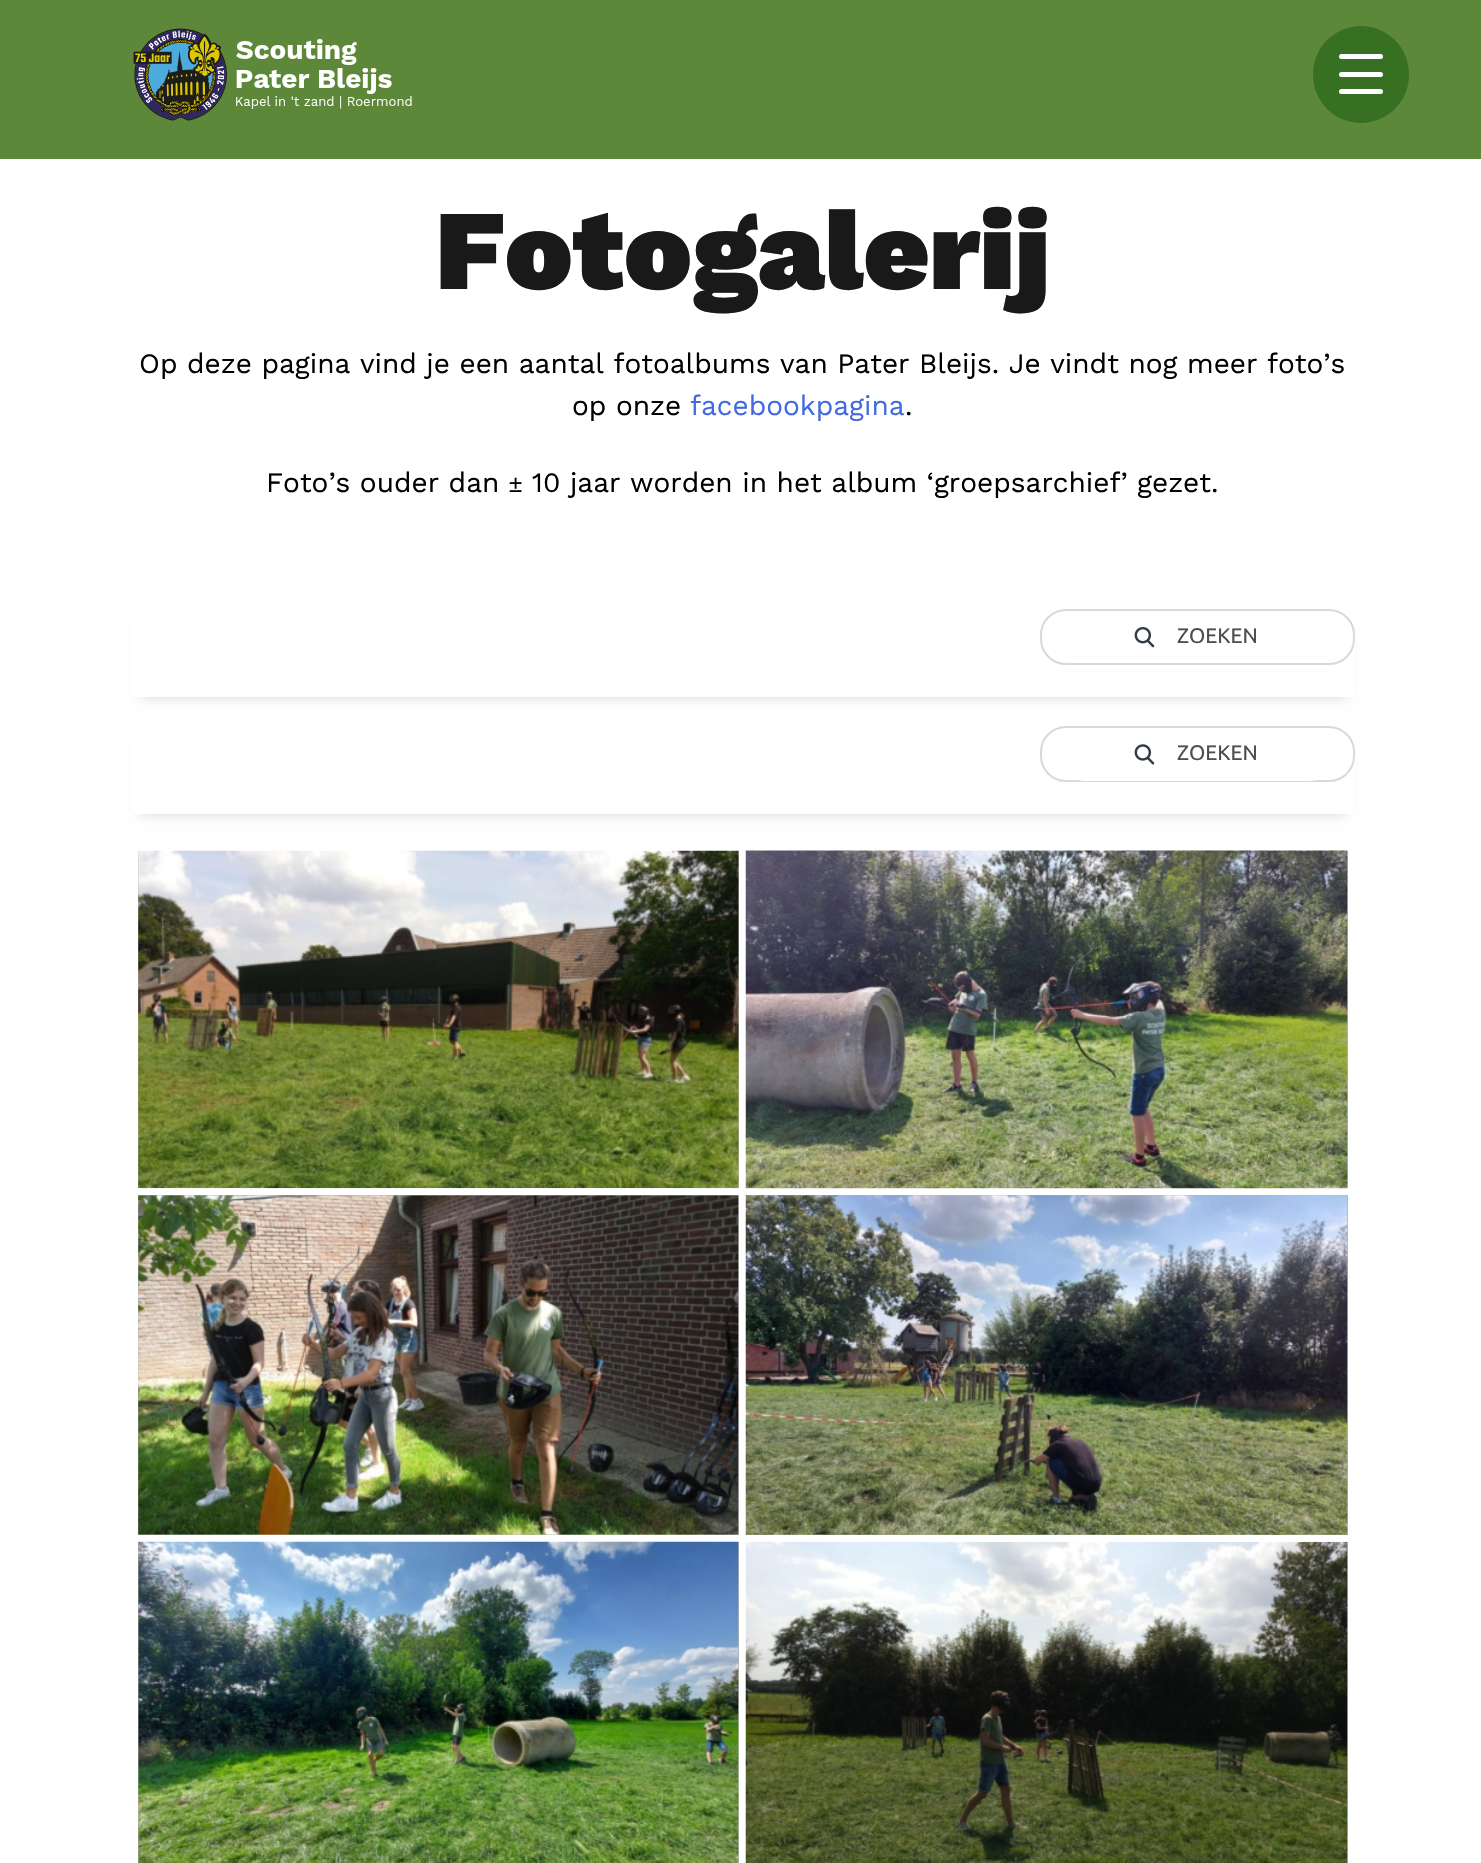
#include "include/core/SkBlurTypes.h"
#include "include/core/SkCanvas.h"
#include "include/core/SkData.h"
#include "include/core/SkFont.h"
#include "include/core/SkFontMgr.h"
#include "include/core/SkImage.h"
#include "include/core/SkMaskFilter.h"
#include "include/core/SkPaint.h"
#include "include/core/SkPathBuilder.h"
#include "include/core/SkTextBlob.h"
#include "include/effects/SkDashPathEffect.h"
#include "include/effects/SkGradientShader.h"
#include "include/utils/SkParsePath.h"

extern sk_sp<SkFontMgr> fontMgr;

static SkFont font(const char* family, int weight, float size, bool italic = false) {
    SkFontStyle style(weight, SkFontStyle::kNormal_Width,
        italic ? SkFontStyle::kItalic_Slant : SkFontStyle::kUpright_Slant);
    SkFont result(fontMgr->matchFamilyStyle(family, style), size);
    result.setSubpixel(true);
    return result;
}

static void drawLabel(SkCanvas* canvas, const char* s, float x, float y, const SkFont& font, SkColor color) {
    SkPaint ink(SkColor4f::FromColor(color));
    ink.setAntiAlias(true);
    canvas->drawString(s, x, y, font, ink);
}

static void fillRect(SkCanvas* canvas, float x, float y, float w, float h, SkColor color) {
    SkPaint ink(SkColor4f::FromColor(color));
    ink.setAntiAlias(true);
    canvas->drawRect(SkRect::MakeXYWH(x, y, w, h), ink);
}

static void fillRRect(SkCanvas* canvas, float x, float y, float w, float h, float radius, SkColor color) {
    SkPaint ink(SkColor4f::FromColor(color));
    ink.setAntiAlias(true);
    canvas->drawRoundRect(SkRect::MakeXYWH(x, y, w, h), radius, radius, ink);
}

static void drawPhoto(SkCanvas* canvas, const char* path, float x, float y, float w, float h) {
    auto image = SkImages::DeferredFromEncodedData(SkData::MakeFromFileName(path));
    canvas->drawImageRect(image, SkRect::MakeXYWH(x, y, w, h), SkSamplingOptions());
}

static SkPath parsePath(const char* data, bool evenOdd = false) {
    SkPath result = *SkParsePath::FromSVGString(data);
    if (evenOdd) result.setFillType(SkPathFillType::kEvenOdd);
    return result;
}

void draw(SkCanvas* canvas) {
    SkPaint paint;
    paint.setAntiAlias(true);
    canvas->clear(0xFFFFFFFF);
    fillRect(canvas, 0, 0, 1481, 159, 0xFF5E8839);
    fillRRect(canvas, 1313, 26, 96, 97, 48, 0xFF377022);
    fillRRect(canvas, 1339, 72, 44, 5, 2.5f, 0xFFFFFFFF);
    fillRRect(canvas, 1339, 54, 44, 5, 2.5f, 0xFFFFFFFF);
    fillRRect(canvas, 1339, 89, 44, 5, 2.5f, 0xFFFFFFFF);
    drawPhoto(canvas, "assets/img1.png", 133, 28, 279, 93);
    SkFont font1 = font("Work Sans", 900, 113.75f);
    drawLabel(canvas, "Fotogalerij", 435, 289, font1, 0xFF191919);
    SkFont font2 = font("Work Sans", 400, 28);
    drawLabel(canvas, "Op deze pagina vind je een aantal fotoalbums van Pater Bleijs. Je vindt nog meer foto’s", 139, 373, font2, 0xFF000000);
    drawLabel(canvas, "op onze", 572, 415, font2, 0xFF000000);
    drawLabel(canvas, "facebookpagina", 690, 415, font2, 0xFF4169E1);
    drawLabel(canvas, ".", 905, 415, font2, 0xFF000000);
    drawLabel(canvas, "Foto’s ouder dan", 266, 492, font2, 0xFF000000);
    SkFont font3 = font("Liberation Sans", 400, 24);
    drawLabel(canvas, "±", 509, 492, font3, 0xFF000000);
    drawLabel(canvas, "10 jaar worden in het album ‘groepsarchief’ gezet.", 532, 492, font2, 0xFF000000);
    canvas->save();
    canvas->clipPath(parsePath("M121 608H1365V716H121ZM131 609H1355V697H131Z", true), true);
    paint.setColor(0x29000000);
    paint.setMaskFilter(SkMaskFilter::MakeBlur(kNormal_SkBlurStyle, 6));
    canvas->drawRect(SkRect::MakeXYWH(140, 627, 1206, 70), paint);
    paint.setMaskFilter(nullptr);
    canvas->restore();
    paint.setStroke(true);
    paint.setStrokeWidth(2);
    paint.setColor(0xFFD9D9D9);
    canvas->drawRoundRect(SkRect::MakeXYWH(1041, 610, 313, 54), 25, 25, paint);
    drawPhoto(canvas, "assets/img2.png", 1134, 627, 21, 21);
    SkFont font4 = font("Ubuntu", 400, 21);
    drawLabel(canvas, "ZOEKEN", 1177, 643, font4, 0xFF4E4E4E);
    canvas->save();
    canvas->clipPath(parsePath("M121 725H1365V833H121ZM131 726H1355V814H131Z", true), true);
    paint.setStroke(false);
    paint.setColor(0x29000000);
    paint.setMaskFilter(SkMaskFilter::MakeBlur(kNormal_SkBlurStyle, 6));
    canvas->drawRect(SkRect::MakeXYWH(140, 744, 1206, 70), paint);
    paint.setMaskFilter(nullptr);
    canvas->restore();
    paint.setStroke(true);
    paint.setColor(0xFFD9D9D9);
    canvas->drawRoundRect(SkRect::MakeXYWH(1041, 727, 313, 54), 25, 25, paint);
    fillRRect(canvas, 1059, 730, 276, 51, 25.5f, 0xFFFFFFFF);
    drawPhoto(canvas, "assets/img3.png", 1134, 744, 21, 21);
    drawLabel(canvas, "ZOEKEN", 1177, 760, font4, 0xFF4E4E4E);
    fillRect(canvas, 138, 851, 601, 337, 0xFFB3B3B3);
    drawPhoto(canvas, "assets/img4.png", 138, 850, 601, 339);
    fillRect(canvas, 1347, 851, 1, 337, 0xFFB3B3B3);
    drawPhoto(canvas, "assets/img5.png", 745, 850, 603, 339);
    fillRect(canvas, 138, 1195, 601, 340, 0xFFB3B3B3);
    drawPhoto(canvas, "assets/img6.png", 138, 1195, 601, 340);
    fillRect(canvas, 746, 1195, 602, 340, 0xFFB3B3B3);
    drawPhoto(canvas, "assets/img7.png", 745, 1195, 603, 340);
    fillRect(canvas, 138, 1542, 601, 321, 0xFFB3B3B3);
    drawPhoto(canvas, "assets/img8.png", 138, 1541, 601, 322);
    fillRect(canvas, 1347, 1542, 1, 321, 0xFFB3B3B3);
    drawPhoto(canvas, "assets/img9.png", 745, 1541, 603, 322);
}
